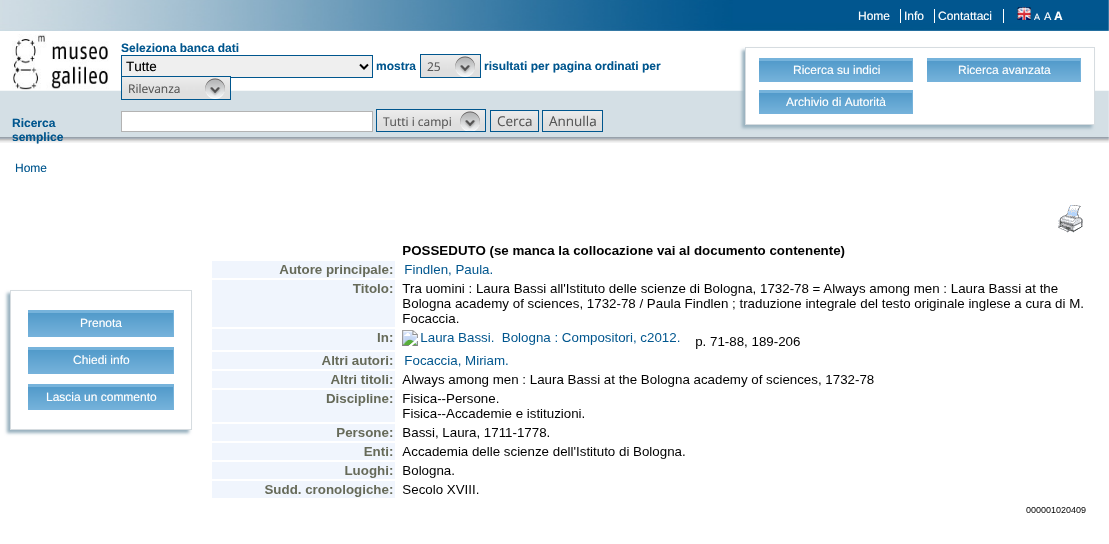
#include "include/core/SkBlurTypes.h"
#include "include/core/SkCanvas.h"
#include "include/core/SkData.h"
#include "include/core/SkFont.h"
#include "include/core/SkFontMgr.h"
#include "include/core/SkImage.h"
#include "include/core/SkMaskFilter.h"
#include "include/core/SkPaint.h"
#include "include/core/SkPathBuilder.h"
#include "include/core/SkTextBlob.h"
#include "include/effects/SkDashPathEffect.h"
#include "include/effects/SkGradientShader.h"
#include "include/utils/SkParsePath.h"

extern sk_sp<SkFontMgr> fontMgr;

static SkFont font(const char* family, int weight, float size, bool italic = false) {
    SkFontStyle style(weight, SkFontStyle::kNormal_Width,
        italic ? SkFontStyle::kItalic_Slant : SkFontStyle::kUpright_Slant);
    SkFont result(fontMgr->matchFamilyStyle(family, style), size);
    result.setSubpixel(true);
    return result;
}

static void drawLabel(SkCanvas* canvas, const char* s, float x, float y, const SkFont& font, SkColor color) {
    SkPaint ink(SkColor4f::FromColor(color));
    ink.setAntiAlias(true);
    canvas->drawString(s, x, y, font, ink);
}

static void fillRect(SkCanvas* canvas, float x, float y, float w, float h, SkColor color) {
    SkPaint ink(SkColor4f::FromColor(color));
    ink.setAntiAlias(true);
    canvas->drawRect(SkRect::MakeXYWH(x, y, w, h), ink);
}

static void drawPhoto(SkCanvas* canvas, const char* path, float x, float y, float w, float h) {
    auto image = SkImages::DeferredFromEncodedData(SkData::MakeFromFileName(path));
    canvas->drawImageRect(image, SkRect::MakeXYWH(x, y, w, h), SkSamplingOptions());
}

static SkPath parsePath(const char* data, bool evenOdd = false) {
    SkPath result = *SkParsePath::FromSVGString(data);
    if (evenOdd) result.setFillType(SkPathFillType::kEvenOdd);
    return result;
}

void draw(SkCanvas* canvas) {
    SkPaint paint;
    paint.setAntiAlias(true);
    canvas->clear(0xFFFFFFFF);
    drawPhoto(canvas, "assets/img1.png", 0, 0, 1109, 143);
    SkFont font1 = font("Liberation Sans", 400, 12);
    drawLabel(canvas, "Home", 858, 20, font1, 0xFFFFFFFF);
    fillRect(canvas, 900, 9, 1, 14, 0xFFFFFFFF);
    drawLabel(canvas, "Info", 904, 20, font1, 0xFFFFFFFF);
    fillRect(canvas, 934, 9, 1, 14, 0xFFFFFFFF);
    drawLabel(canvas, "Contattaci", 938, 20, font1, 0xFFFFFFFF);
    fillRect(canvas, 1003, 9, 1, 14, 0xFFFFFFFF);
    drawPhoto(canvas, "assets/img2.png", 1017, 7, 14, 13);
    SkFont font2 = font("Liberation Sans", 400, 9);
    drawLabel(canvas, "A", 1034, 20, font2, 0xFFFFFFFF);
    SkFont font3 = font("Liberation Sans", 400, 11);
    drawLabel(canvas, "A", 1044, 20, font3, 0xFFFFFFFF);
    SkFont font4 = font("Liberation Sans", 700, 12);
    drawLabel(canvas, "A", 1054, 20, font4, 0xFFFFFFFF);
    drawPhoto(canvas, "assets/img3.png", 12, 34, 97, 56);
    drawLabel(canvas, "Seleziona banca dati", 121, 52, font4, 0xFF00568E);
    paint.setColor(0xFFEFEFEF);
    canvas->drawRect(SkRect::MakeXYWH(121.5f, 55.5f, 251, 22), paint);
    paint.setStroke(true);
    paint.setStrokeWidth(1);
    paint.setColor(0xFF00568E);
    canvas->drawRect(SkRect::MakeXYWH(121.5f, 55.5f, 251, 22), paint);
    paint.setStrokeWidth(2);
    paint.setColor(0xFF000000);
    canvas->drawPath(parsePath("M360 64.5L364 68.5L368 64.5"), paint);
    SkFont font5 = font("Liberation Sans", 400, 13.5f);
    drawLabel(canvas, "Tutte", 126, 71, font5, 0xFF000000);
    drawLabel(canvas, "mostra", 376, 70, font4, 0xFF00568E);
    drawPhoto(canvas, "assets/img4.png", 421, 55, 59, 22);
    paint.setStrokeWidth(1);
    paint.setColor(0xFF00568E);
    canvas->drawRect(SkRect::MakeXYWH(420.5f, 54.5f, 60, 23), paint);
    SkFont font6 = font("Open Sans", 400, 12);
    drawLabel(canvas, "25", 427, 71, font6, 0xFF555555);
    drawPhoto(canvas, "assets/img5.png", 455, 56, 20, 21);
    drawLabel(canvas, "risultati per pagina ordinati per", 484, 70, font4, 0xFF00568E);
    drawPhoto(canvas, "assets/img6.png", 122, 77, 108, 22);
    canvas->drawRect(SkRect::MakeXYWH(121.5f, 76.5f, 109, 23), paint);
    drawLabel(canvas, "Rilevanza", 128, 93, font6, 0xFF555555);
    drawPhoto(canvas, "assets/img5.png", 205, 78, 20, 21);
    drawLabel(canvas, "Ricerca", 12, 127, font4, 0xFF00568E);
    drawLabel(canvas, "semplice", 12, 141, font4, 0xFF00568E);
    paint.setStroke(false);
    paint.setColor(0xFFFFFFFF);
    canvas->drawRect(SkRect::MakeXYWH(121.5f, 111.5f, 251, 20), paint);
    paint.setStroke(true);
    paint.setColor(0xFFB3B3B3);
    canvas->drawRect(SkRect::MakeXYWH(121.5f, 111.5f, 251, 20), paint);
    drawPhoto(canvas, "assets/img7.png", 377, 110, 108, 21);
    paint.setColor(0xFF00568E);
    canvas->drawRect(SkRect::MakeXYWH(376.5f, 109.5f, 109, 22), paint);
    drawLabel(canvas, "Tutti i campi", 383, 126, font6, 0xFF555555);
    drawPhoto(canvas, "assets/img8.png", 460, 111, 20, 20);
    drawPhoto(canvas, "assets/img9.png", 491, 111, 47, 20);
    canvas->drawRect(SkRect::MakeXYWH(490.5f, 110.5f, 48, 21), paint);
    SkFont font7 = font("Open Sans", 400, 13.5f);
    drawLabel(canvas, "Cerca", 497, 126, font7, 0xFF555555);
    drawPhoto(canvas, "assets/img10.png", 543, 111, 59, 20);
    canvas->drawRect(SkRect::MakeXYWH(542.5f, 110.5f, 60, 21), paint);
    drawLabel(canvas, "Annulla", 549, 126, font7, 0xFF555555);
    paint.setStroke(false);
    paint.setColor(0xFF99B2BF);
    paint.setMaskFilter(SkMaskFilter::MakeBlur(kNormal_SkBlurStyle, 1.5f));
    canvas->drawRect(SkRect::MakeXYWH(742, 50, 350, 78), paint);
    paint.setMaskFilter(nullptr);
    paint.setColor(0xFFFFFFFF);
    canvas->drawRect(SkRect::MakeXYWH(745.5f, 47.5f, 349, 77), paint);
    paint.setStroke(true);
    paint.setColor(0xFFD6DCE0);
    canvas->drawRect(SkRect::MakeXYWH(745.5f, 47.5f, 349, 77), paint);
    paint.setStroke(false);
    {
        const SkColor colors[] = {0xFF4D97C8, 0xFF76B3DB};
        const float stops[] = {0, 1};
        const SkPoint ends[] = {{836, 58}, {836, 82}};
        paint.setShader(SkGradientShader::MakeLinear(ends, colors, stops, 2, SkTileMode::kClamp));
        paint.setAlpha(255);
    }
    canvas->drawRect(SkRect::MakeXYWH(759, 61, 153, 21), paint);
    canvas->save();
    canvas->clipRect(SkRect::MakeXYWH(759, 58, 154, 24));
    paint.setShader(nullptr);
    paint.setColor(0xFF76B3DB);
    canvas->drawPath(parsePath("M660-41H1012V181H660ZM758 61H912V85H758Z", true), paint);
    canvas->restore();
    drawLabel(canvas, "Ricerca su indici", 793, 74, font1, 0xFFFFFFFF);
    {
        const SkColor colors[] = {0xFF4D97C8, 0xFF76B3DB};
        const float stops[] = {0, 1};
        const SkPoint ends[] = {{1004, 58}, {1004, 82}};
        paint.setShader(SkGradientShader::MakeLinear(ends, colors, stops, 2, SkTileMode::kClamp));
        paint.setAlpha(255);
    }
    canvas->drawRect(SkRect::MakeXYWH(927, 61, 153, 21), paint);
    canvas->save();
    canvas->clipRect(SkRect::MakeXYWH(927, 58, 154, 24));
    paint.setShader(nullptr);
    paint.setColor(0xFF76B3DB);
    canvas->drawPath(parsePath("M828-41H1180V181H828ZM926 61H1080V85H926Z", true), paint);
    canvas->restore();
    drawLabel(canvas, "Ricerca avanzata", 958, 74, font1, 0xFFFFFFFF);
    {
        const SkColor colors[] = {0xFF4D97C8, 0xFF76B3DB};
        const float stops[] = {0, 1};
        const SkPoint ends[] = {{836, 90}, {836, 114}};
        paint.setShader(SkGradientShader::MakeLinear(ends, colors, stops, 2, SkTileMode::kClamp));
        paint.setAlpha(255);
    }
    canvas->drawRect(SkRect::MakeXYWH(759, 93, 153, 21), paint);
    canvas->save();
    canvas->clipRect(SkRect::MakeXYWH(759, 90, 154, 24));
    paint.setShader(nullptr);
    paint.setColor(0xFF76B3DB);
    canvas->drawPath(parsePath("M660-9H1012V213H660ZM758 93H912V117H758Z", true), paint);
    canvas->restore();
    drawLabel(canvas, "Archivio di Autorità", 786, 106, font1, 0xFFFFFFFF);
    drawLabel(canvas, "Home", 15, 172, font1, 0xFF00568E);
    canvas->save();
    canvas->clipPath(parsePath("M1 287H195V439H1ZM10 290H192V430H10Z", true), true);
    paint.setColor(0xFF99B2BF);
    paint.setMaskFilter(SkMaskFilter::MakeBlur(kNormal_SkBlurStyle, 1.5f));
    canvas->drawRect(SkRect::MakeXYWH(7, 293, 182, 140), paint);
    paint.setMaskFilter(nullptr);
    canvas->restore();
    paint.setStroke(true);
    paint.setColor(0xFFD6DCE0);
    canvas->drawRect(SkRect::MakeXYWH(10.5f, 290.5f, 181, 139), paint);
    paint.setStroke(false);
    {
        const SkColor colors[] = {0xFF4D97C8, 0xFF76B3DB};
        const float stops[] = {0, 1};
        const SkPoint ends[] = {{101, 310}, {101, 337}};
        paint.setShader(SkGradientShader::MakeLinear(ends, colors, stops, 2, SkTileMode::kClamp));
        paint.setAlpha(255);
    }
    canvas->drawRect(SkRect::MakeXYWH(28, 313, 145, 24), paint);
    canvas->save();
    canvas->clipRect(SkRect::MakeXYWH(28, 310, 146, 27));
    paint.setShader(nullptr);
    paint.setColor(0xFF76B3DB);
    canvas->drawPath(parsePath("M-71 211H273V436H-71ZM27 313H173V340H27Z", true), paint);
    canvas->restore();
    drawLabel(canvas, "Prenota", 80, 327, font1, 0xFFFFFFFF);
    {
        const SkColor colors[] = {0xFF4D97C8, 0xFF76B3DB};
        const float stops[] = {0, 1};
        const SkPoint ends[] = {{101, 347}, {101, 374}};
        paint.setShader(SkGradientShader::MakeLinear(ends, colors, stops, 2, SkTileMode::kClamp));
        paint.setAlpha(255);
    }
    canvas->drawRect(SkRect::MakeXYWH(28, 350, 145, 24), paint);
    canvas->save();
    canvas->clipRect(SkRect::MakeXYWH(28, 347, 146, 27));
    paint.setShader(nullptr);
    paint.setColor(0xFF76B3DB);
    canvas->drawPath(parsePath("M-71 248H273V473H-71ZM27 350H173V377H27Z", true), paint);
    canvas->restore();
    drawLabel(canvas, "Chiedi info", 73, 364, font1, 0xFFFFFFFF);
    {
        const SkColor colors[] = {0xFF4D97C8, 0xFF76B3DB};
        const float stops[] = {0, 1};
        const SkPoint ends[] = {{101, 384}, {101, 410}};
        paint.setShader(SkGradientShader::MakeLinear(ends, colors, stops, 2, SkTileMode::kClamp));
        paint.setAlpha(255);
    }
    canvas->drawRect(SkRect::MakeXYWH(28, 387, 145, 23), paint);
    canvas->save();
    canvas->clipRect(SkRect::MakeXYWH(28, 384, 146, 26));
    paint.setShader(nullptr);
    paint.setColor(0xFF76B3DB);
    canvas->drawPath(parsePath("M-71 285H273V509H-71ZM27 387H173V413H27Z", true), paint);
    canvas->restore();
    drawLabel(canvas, "Lascia un commento", 46, 401, font1, 0xFFFFFFFF);
    drawPhoto(canvas, "assets/img11.png", 212, 205, 874, 308);
}
